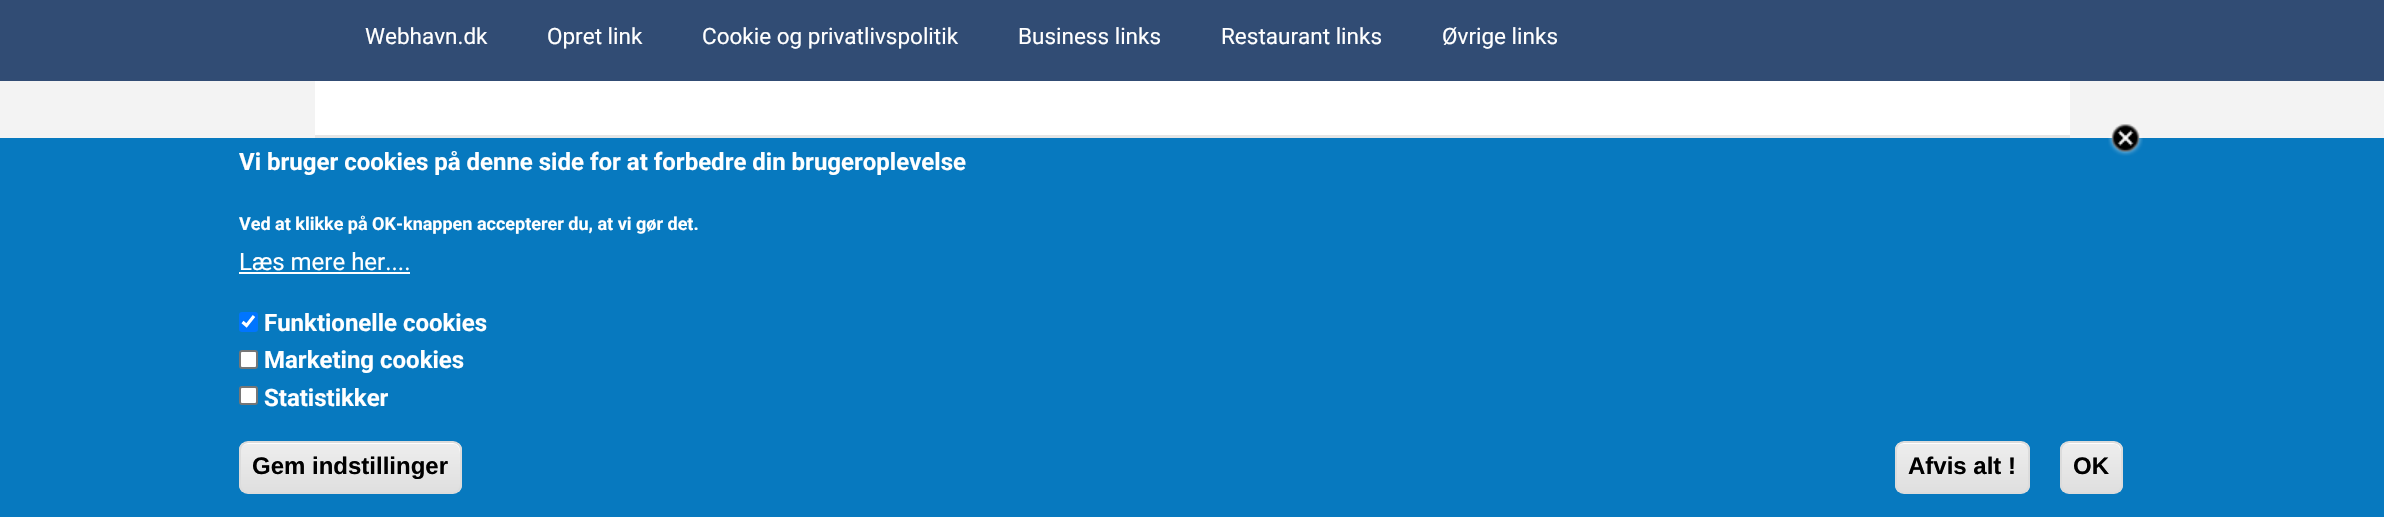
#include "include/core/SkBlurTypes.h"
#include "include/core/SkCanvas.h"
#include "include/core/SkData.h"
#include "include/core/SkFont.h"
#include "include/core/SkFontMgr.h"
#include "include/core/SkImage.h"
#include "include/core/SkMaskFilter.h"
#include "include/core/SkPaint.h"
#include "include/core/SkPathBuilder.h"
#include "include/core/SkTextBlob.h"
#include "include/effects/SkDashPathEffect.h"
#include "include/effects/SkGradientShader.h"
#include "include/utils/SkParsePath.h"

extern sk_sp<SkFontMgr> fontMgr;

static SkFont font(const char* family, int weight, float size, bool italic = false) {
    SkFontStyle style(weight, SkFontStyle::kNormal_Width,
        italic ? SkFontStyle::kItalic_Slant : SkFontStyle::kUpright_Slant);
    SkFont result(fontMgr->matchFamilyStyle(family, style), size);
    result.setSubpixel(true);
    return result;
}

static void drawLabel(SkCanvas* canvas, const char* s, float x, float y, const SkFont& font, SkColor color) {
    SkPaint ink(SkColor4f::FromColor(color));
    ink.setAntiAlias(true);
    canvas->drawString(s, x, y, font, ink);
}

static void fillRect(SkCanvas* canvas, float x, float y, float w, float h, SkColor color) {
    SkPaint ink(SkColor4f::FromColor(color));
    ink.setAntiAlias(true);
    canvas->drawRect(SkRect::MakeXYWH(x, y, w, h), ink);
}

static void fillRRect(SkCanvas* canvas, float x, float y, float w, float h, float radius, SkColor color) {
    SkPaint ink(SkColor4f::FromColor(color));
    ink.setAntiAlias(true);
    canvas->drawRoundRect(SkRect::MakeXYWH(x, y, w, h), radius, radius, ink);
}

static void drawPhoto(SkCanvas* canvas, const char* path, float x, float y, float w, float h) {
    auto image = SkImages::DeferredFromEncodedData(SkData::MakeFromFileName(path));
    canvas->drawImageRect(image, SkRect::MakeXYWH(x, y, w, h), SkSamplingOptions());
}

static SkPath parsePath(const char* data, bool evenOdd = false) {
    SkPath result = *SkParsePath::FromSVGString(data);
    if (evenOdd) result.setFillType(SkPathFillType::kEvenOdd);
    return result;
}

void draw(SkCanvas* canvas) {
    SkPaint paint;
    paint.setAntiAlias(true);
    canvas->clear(0xFFF3F3F3);
    fillRect(canvas, 0, 0, 2384, 81, 0xFF314C74);
    SkFont font1 = font("Roboto", 400, 22.5f);
    drawLabel(canvas, "Webhavn.dk", 365, 44, font1, 0xFFFFFFFF);
    drawLabel(canvas, "Opret link", 547, 44, font1, 0xFFFFFFFF);
    drawLabel(canvas, "Cookie og privatlivspolitik", 702, 44, font1, 0xFFFFFFFF);
    drawLabel(canvas, "Business links", 1018, 44, font1, 0xFFFFFFFF);
    drawLabel(canvas, "Restaurant links", 1221, 44, font1, 0xFFFFFFFF);
    drawLabel(canvas, "Øvrige links", 1442, 44, font1, 0xFFFFFFFF);
    fillRect(canvas, 315, 81, 1755, 54, 0xFFFFFFFF);
    fillRect(canvas, 315, 135, 1755, 3, 0xFFE5E5E5);
    fillRect(canvas, 0, 138, 2384, 379, 0xFF0779BF);
    drawPhoto(canvas, "assets/img1.png", 2108, 124, 35, 32);
    SkFont font2 = font("Roboto", 700, 24);
    drawLabel(canvas, "Vi bruger cookies på denne side for at forbedre din brugeroplevelse", 239, 170, font2, 0xFFFFFFFF);
    SkFont font3 = font("Roboto", 700, 18);
    drawLabel(canvas, "Ved at klikke på OK-knappen accepterer du, at vi gør det.", 239, 230, font3, 0xFFFFFFFF);
    SkFont font4 = font("Roboto", 400, 24);
    drawLabel(canvas, "Læs mere her....", 239, 270, font4, 0xFFFFFFFF);
    fillRect(canvas, 239, 272, 171, 2, 0xFFFFFFFF);
    fillRRect(canvas, 239, 312, 19, 20, 3, 0xFF0075FF);
    paint.setStroke(true);
    paint.setStrokeWidth(3.1f);
    paint.setColor(0xFFFFFFFF);
    canvas->drawPath(parsePath("M242.5 322L246.5 325.5L254 316"), paint);
    drawLabel(canvas, "Funktionelle cookies", 264, 331, font2, 0xFFFFFFFF);
    paint.setStroke(false);
    canvas->drawRoundRect(SkRect::MakeXYWH(240, 351, 17, 17), 2, 2, paint);
    paint.setStroke(true);
    paint.setStrokeWidth(2);
    paint.setColor(0xFF767676);
    canvas->drawRoundRect(SkRect::MakeXYWH(240, 351, 17, 17), 2, 2, paint);
    drawLabel(canvas, "Marketing cookies", 264, 368, font2, 0xFFFFFFFF);
    paint.setStroke(false);
    paint.setColor(0xFFFFFFFF);
    canvas->drawRoundRect(SkRect::MakeXYWH(240, 387, 17, 17), 2, 2, paint);
    paint.setStroke(true);
    paint.setColor(0xFF767676);
    canvas->drawRoundRect(SkRect::MakeXYWH(240, 387, 17, 17), 2, 2, paint);
    drawLabel(canvas, "Statistikker", 264, 406, font2, 0xFFFFFFFF);
    canvas->save();
    canvas->clipPath(parsePath("M248 441H453C458 441 462 445 462 450V485C462 490 458 494 453 494H248C243 494 239 490 239 485V450C239 445 243 441 248 441Z"), true);
    paint.setStroke(false);
    {
        const SkColor colors[] = {0xFFEDEDED, 0xFFDFDFDF};
        const float stops[] = {0.05f, 1};
        const SkPoint ends[] = {{350, 443}, {350, 492}};
        paint.setShader(SkGradientShader::MakeLinear(ends, colors, stops, 2, SkTileMode::kClamp));
        paint.setAlpha(255);
    }
    canvas->drawRect(SkRect::MakeXYWH(239, 443, 223, 49), paint);
    canvas->restore();
    paint.setShader(nullptr);
    paint.setColor(0xFFFFFFFF);
    canvas->drawPath(parsePath("M248 444H453C462 444 460 458 460 463V488C460 487 461 486 461 484V451C461 447 457 443 453 443H248C244 443 240 447 240 451V452C240 447 243 444 248 444Z"), paint);
    paint.setStroke(true);
    paint.setColor(0xFFDCDCDC);
    canvas->drawRoundRect(SkRect::MakeXYWH(240, 442, 221, 51), 8, 8, paint);
    SkFont font5 = font("Liberation Sans", 700, 24);
    drawLabel(canvas, "Gem indstillinger", 252, 474, font5, 0xFF000000);
    canvas->save();
    canvas->clipPath(parsePath("M1904 441H2021C2026 441 2030 445 2030 450V485C2030 490 2026 494 2021 494H1904C1899 494 1895 490 1895 485V450C1895 445 1899 441 1904 441Z"), true);
    paint.setStroke(false);
    {
        const SkColor colors[] = {0xFFEDEDED, 0xFFDFDFDF};
        const float stops[] = {0.05f, 1};
        const SkPoint ends[] = {{1962, 443}, {1962, 492}};
        paint.setShader(SkGradientShader::MakeLinear(ends, colors, stops, 2, SkTileMode::kClamp));
        paint.setAlpha(255);
    }
    canvas->drawRect(SkRect::MakeXYWH(1895, 443, 135, 49), paint);
    canvas->restore();
    paint.setShader(nullptr);
    paint.setColor(0xFFFFFFFF);
    canvas->drawPath(parsePath("M1904 444H2020C2025 444 2028 447 2028 452C2028 438 2008 443 2001 443H1923C1916 443 1896 438 1896 452C1896 447 1899 444 1904 444Z"), paint);
    paint.setStroke(true);
    paint.setColor(0xFFDCDCDC);
    canvas->drawRoundRect(SkRect::MakeXYWH(1896, 442, 133, 51), 8, 8, paint);
    drawLabel(canvas, "Afvis alt !", 1908, 474, font5, 0xFF000000);
    canvas->save();
    canvas->clipPath(parsePath("M2069 441H2114C2119 441 2123 445 2123 450V485C2123 490 2119 494 2114 494H2069C2064 494 2060 490 2060 485V450C2060 445 2064 441 2069 441Z"), true);
    paint.setStroke(false);
    {
        const SkColor colors[] = {0xFFEDEDED, 0xFFDFDFDF};
        const float stops[] = {0.05f, 1};
        const SkPoint ends[] = {{2091, 443}, {2091, 492}};
        paint.setShader(SkGradientShader::MakeLinear(ends, colors, stops, 2, SkTileMode::kClamp));
        paint.setAlpha(255);
    }
    canvas->drawRect(SkRect::MakeXYWH(2060, 443, 63, 49), paint);
    canvas->restore();
    paint.setShader(nullptr);
    paint.setColor(0xFFFFFFFF);
    canvas->drawPath(parsePath("M2068 444H2115C2119 445 2120 448 2121 452C2121 442 2113 443 2106 443H2076C2069 443 2061 442 2061 452C2061 448 2063 444 2068 444ZM2061 486V480Z", true), paint);
    paint.setStroke(true);
    paint.setColor(0xFFDCDCDC);
    canvas->drawRoundRect(SkRect::MakeXYWH(2061, 442, 61, 51), 8, 8, paint);
    drawLabel(canvas, "OK", 2073, 474, font5, 0xFF000000);
}
